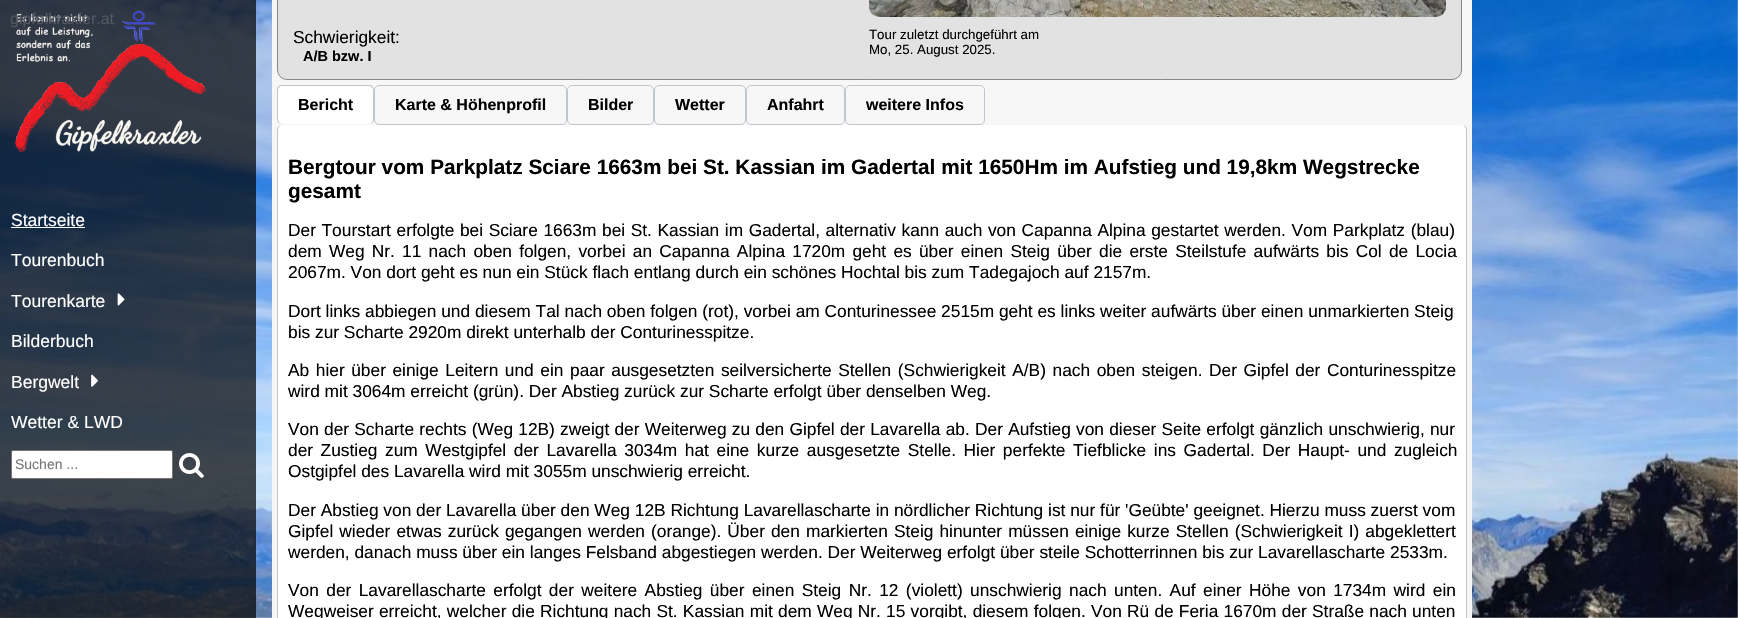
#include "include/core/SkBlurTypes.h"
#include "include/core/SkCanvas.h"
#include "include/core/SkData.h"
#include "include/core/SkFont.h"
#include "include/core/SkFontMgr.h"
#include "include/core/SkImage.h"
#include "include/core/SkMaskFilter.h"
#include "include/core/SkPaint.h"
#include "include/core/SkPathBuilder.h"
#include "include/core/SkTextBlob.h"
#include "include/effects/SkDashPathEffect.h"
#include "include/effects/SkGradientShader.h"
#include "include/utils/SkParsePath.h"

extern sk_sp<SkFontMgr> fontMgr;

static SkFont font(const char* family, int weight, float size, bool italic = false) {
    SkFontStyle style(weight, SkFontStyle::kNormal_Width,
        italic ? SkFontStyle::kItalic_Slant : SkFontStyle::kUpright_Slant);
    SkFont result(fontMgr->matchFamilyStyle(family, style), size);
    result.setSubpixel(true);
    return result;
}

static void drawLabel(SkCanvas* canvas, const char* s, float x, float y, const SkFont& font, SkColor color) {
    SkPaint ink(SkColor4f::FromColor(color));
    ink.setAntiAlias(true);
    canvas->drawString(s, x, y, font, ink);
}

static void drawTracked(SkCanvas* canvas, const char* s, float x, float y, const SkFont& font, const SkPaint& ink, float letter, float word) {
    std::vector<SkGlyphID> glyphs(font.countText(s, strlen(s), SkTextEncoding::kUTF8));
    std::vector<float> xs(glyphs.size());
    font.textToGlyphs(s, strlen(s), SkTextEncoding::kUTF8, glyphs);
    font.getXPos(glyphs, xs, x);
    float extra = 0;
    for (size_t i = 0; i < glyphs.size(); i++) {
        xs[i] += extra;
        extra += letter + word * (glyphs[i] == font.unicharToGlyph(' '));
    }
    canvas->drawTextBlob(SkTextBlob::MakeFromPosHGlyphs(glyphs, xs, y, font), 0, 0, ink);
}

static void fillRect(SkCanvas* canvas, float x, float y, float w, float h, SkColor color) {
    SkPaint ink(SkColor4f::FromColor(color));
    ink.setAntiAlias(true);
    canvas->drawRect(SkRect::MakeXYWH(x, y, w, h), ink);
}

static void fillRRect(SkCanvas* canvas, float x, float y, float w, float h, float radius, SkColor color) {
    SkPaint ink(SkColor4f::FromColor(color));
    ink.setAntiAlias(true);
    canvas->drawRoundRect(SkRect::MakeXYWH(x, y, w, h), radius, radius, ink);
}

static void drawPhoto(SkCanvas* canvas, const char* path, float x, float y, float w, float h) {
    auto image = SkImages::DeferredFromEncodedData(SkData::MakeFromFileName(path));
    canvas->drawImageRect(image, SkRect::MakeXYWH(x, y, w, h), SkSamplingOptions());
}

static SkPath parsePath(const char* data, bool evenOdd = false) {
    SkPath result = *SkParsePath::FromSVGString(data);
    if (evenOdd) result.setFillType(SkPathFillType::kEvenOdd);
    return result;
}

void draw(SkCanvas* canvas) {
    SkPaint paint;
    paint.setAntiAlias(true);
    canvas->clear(0xFFFFFFFF);
    drawPhoto(canvas, "assets/img5.png", 0, 0, 1738, 618);
    fillRect(canvas, 0, 0, 256, 618, 0xB3000000);
    drawPhoto(canvas, "assets/img1.png", 14, 10, 192, 142);
    SkFont font1 = font("Liberation Sans", 400, 16);
    drawLabel(canvas, "gipfelkraxler.at", 10, 24, font1, 0xFF525862);
    SkFont font2 = font("Liberation Sans", 400, 17.5f);
    drawLabel(canvas, "Startseite", 11, 226, font2, 0xFFFFFFFF);
    fillRect(canvas, 11, 227, 74, 1, 0xFFFFFFFF);
    drawLabel(canvas, "Tourenbuch", 11, 266, font2, 0xFFFFFFFF);
    drawLabel(canvas, "Tourenkarte", 11, 307, font2, 0xFFFFFFFF);
    drawPhoto(canvas, "assets/img2.png", 117, 293, 8, 13);
    drawLabel(canvas, "Bilderbuch", 11, 347, font2, 0xFFFFFFFF);
    drawLabel(canvas, "Bergwelt", 11, 388, font2, 0xFFFFFFFF);
    drawPhoto(canvas, "assets/img3.png", 91, 374, 7, 13);
    drawLabel(canvas, "Wetter & LWD", 11, 428, font2, 0xFFFFFFFF);
    paint.setColor(0xFFFFFFFF);
    canvas->drawRoundRect(SkRect::MakeXYWH(11.5f, 450.5f, 161, 28), 1.5f, 1.5f, paint);
    paint.setStroke(true);
    paint.setStrokeWidth(1);
    paint.setColor(0xFF767676);
    canvas->drawRoundRect(SkRect::MakeXYWH(11.5f, 450.5f, 161, 28), 1.5f, 1.5f, paint);
    SkFont font3 = font("Liberation Sans", 400, 14);
    drawLabel(canvas, "Suchen ...", 15, 469, font3, 0xFF757575);
    drawPhoto(canvas, "assets/img4.png", 179, 453, 25, 25);
    fillRect(canvas, 272, 0, 1200, 618, 0xFFF7F7F7);
    paint.setStroke(false);
    paint.setColor(0xFFE2E2E2);
    canvas->drawRoundRect(SkRect::MakeXYWH(277.5f, -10.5f, 1184, 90), 9.5f, 9.5f, paint);
    paint.setStroke(true);
    paint.setColor(0xFF878787);
    canvas->drawRoundRect(SkRect::MakeXYWH(277.5f, -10.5f, 1184, 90), 9.5f, 9.5f, paint);
    drawPhoto(canvas, "assets/img6.png", 869, 0, 577, 17);
    SkFont font4 = font("Liberation Sans", 400, 17.33f);
    drawLabel(canvas, "Schwierigkeit:", 293, 43, font4, 0xFF000000);
    SkFont font5 = font("Liberation Sans", 700, 14.5f);
    drawLabel(canvas, "A/B bzw. I", 303, 61, font5, 0xFF000000);
    SkFont font6 = font("Liberation Sans", 400, 13.3f);
    drawLabel(canvas, "Tour zuletzt durchgeführt am", 869, 39, font6, 0xFF000000);
    drawLabel(canvas, "Mo, 25. August 2025.", 869, 54, font6, 0xFF000000);
    fillRRect(canvas, 277, 85, 97, 39, 5, 0xFFFFFFFF);
    paint.setStroke(false);
    paint.setColor(0xFFC0C6CF);
    canvas->drawPath(parsePath("M282 85H369C372 85 374 87 374 90V119C374 122 372 124 369 124H282C279 124 277 122 277 119V90C277 87 279 85 282 85ZM282 86H369C371 86 373 88 373 90V119C373 122 371 124 369 124H282C280 124 278 122 278 119V90C278 88 280 86 282 86Z", true), paint);
    SkFont font7 = font("Liberation Sans", 700, 16);
    drawLabel(canvas, "Bericht", 298, 110, font7, 0xFF000000);
    paint.setStroke(true);
    canvas->drawRoundRect(SkRect::MakeXYWH(374.5f, 85.5f, 192, 39), 4.5f, 4.5f, paint);
    drawLabel(canvas, "Karte & Höhenprofil", 395, 110, font7, 0xFF000000);
    canvas->drawRoundRect(SkRect::MakeXYWH(567.5f, 85.5f, 86, 39), 4.5f, 4.5f, paint);
    drawLabel(canvas, "Bilder", 588, 110, font7, 0xFF000000);
    canvas->drawRoundRect(SkRect::MakeXYWH(654.5f, 85.5f, 91, 39), 4.5f, 4.5f, paint);
    drawLabel(canvas, "Wetter", 675, 110, font7, 0xFF000000);
    canvas->drawRoundRect(SkRect::MakeXYWH(746.5f, 85.5f, 98, 39), 4.5f, 4.5f, paint);
    drawLabel(canvas, "Anfahrt", 767, 110, font7, 0xFF000000);
    canvas->drawRoundRect(SkRect::MakeXYWH(845.5f, 85.5f, 139, 39), 4.5f, 4.5f, paint);
    drawLabel(canvas, "weitere Infos", 866, 110, font7, 0xFF000000);
    fillRRect(canvas, 277, 125, 1190, 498, 5, 0xFFFFFFFF);
    paint.setStroke(false);
    canvas->drawPath(parsePath("M282 125H1462C1465 125 1467 127 1467 130V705C1467 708 1465 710 1462 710H282C279 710 277 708 277 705V130C277 127 279 125 282 125ZM282 125H1462C1464 125 1466 127 1466 130V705C1466 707 1464 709 1462 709H282C280 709 278 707 278 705V130C278 127 280 125 282 125Z", true), paint);
    SkFont font8 = font("Liberation Sans", 700, 20.8f);
    drawLabel(canvas, "Bergtour vom Parkplatz Sciare 1663m bei St. Kassian im Gadertal mit 1650Hm im Aufstieg und 19,8km Wegstrecke", 288, 174, font8, 0xFF000000);
    drawLabel(canvas, "gesamt", 288, 198, font8, 0xFF000000);
    paint.setColor(0xFF000000);
    drawTracked(canvas, "Der Tourstart erfolgte bei Sciare 1663m bei St. Kassian im Gadertal, alternativ kann auch von Capanna Alpina gestartet werden. Vom Parkplatz (blau)", 288, 236, font4, paint, 0, 0.8f);
    drawTracked(canvas, "dem Weg Nr. 11 nach oben folgen, vorbei an Capanna Alpina 1720m geht es über einen Steig über die erste Steilstufe aufwärts bis Col de Locia", 288, 257, font4, paint, 0, 2.4f);
    drawLabel(canvas, "2067m. Von dort geht es nun ein Stück flach entlang durch ein schönes Hochtal bis zum Tadegajoch auf 2157m.", 288, 278, font4, 0xFF000000);
    drawLabel(canvas, "Dort links abbiegen und diesem Tal nach oben folgen (rot), vorbei am Conturinessee 2515m geht es links weiter aufwärts über einen unmarkierten Steig", 288, 317, font4, 0xFF000000);
    drawLabel(canvas, "bis zur Scharte 2920m direkt unterhalb der Conturinesspitze.", 288, 338, font4, 0xFF000000);
    drawTracked(canvas, "Ab hier über einige Leitern und ein paar ausgesetzten seilversicherte Stellen (Schwierigkeit A/B) nach oben steigen. Der Gipfel der Conturinesspitze", 288, 376, font4, paint, 0, 1.75f);
    drawLabel(canvas, "wird mit 3064m erreicht (grün). Der Abstieg zurück zur Scharte erfolgt über denselben Weg.", 288, 397, font4, 0xFF000000);
    drawTracked(canvas, "Von der Scharte rechts (Weg 12B) zweigt der Weiterweg zu den Gipfel der Lavarella ab. Der Aufstieg von dieser Seite erfolgt gänzlich unschwierig, nur", 288, 435, font4, paint, 0, 0.4f);
    drawTracked(canvas, "der Zustieg zum Westgipfel der Lavarella 3034m hat eine kurze ausgesetzte Stelle. Hier perfekte Tiefblicke ins Gadertal. Der Haupt- und zugleich", 288, 456, font4, paint, 0, 2.75f);
    drawLabel(canvas, "Ostgipfel des Lavarella wird mit 3055m unschwierig erreicht.", 288, 477, font4, 0xFF000000);
    drawLabel(canvas, "Der Abstieg von der Lavarella über den Weg 12B Richtung Lavarellascharte in nördlicher Richtung ist nur für 'Geübte' geeignet. Hierzu muss zuerst vom", 288, 516, font4, 0xFF000000);
    drawTracked(canvas, "Gipfel wieder etwas zurück gegangen werden (orange). Über den markierten Steig hinunter müssen einige kurze Stellen (Schwierigkeit I) abgeklettert", 288, 537, font4, paint, 0, 1.25f);
    drawLabel(canvas, "werden, danach muss über ein langes Felsband abgestiegen werden. Der Weiterweg erfolgt über steile Schotterrinnen bis zur Lavarellascharte 2533m.", 288, 558, font4, 0xFF000000);
    drawTracked(canvas, "Von der Lavarellascharte erfolgt der weitere Abstieg über einen Steig Nr. 12 (violett) unschwierig nach unten. Auf einer Höhe von 1734m wird ein", 288, 596, font4, paint, 0, 2.6f);
    drawTracked(canvas, "Wegweiser erreicht, welcher die Richtung nach St. Kassian mit dem Weg Nr. 15 vorgibt, diesem folgen. Von Rü de Feria 1670m der Straße nach unten", 288, 617, font4, paint, 0, 0.4f);
}
